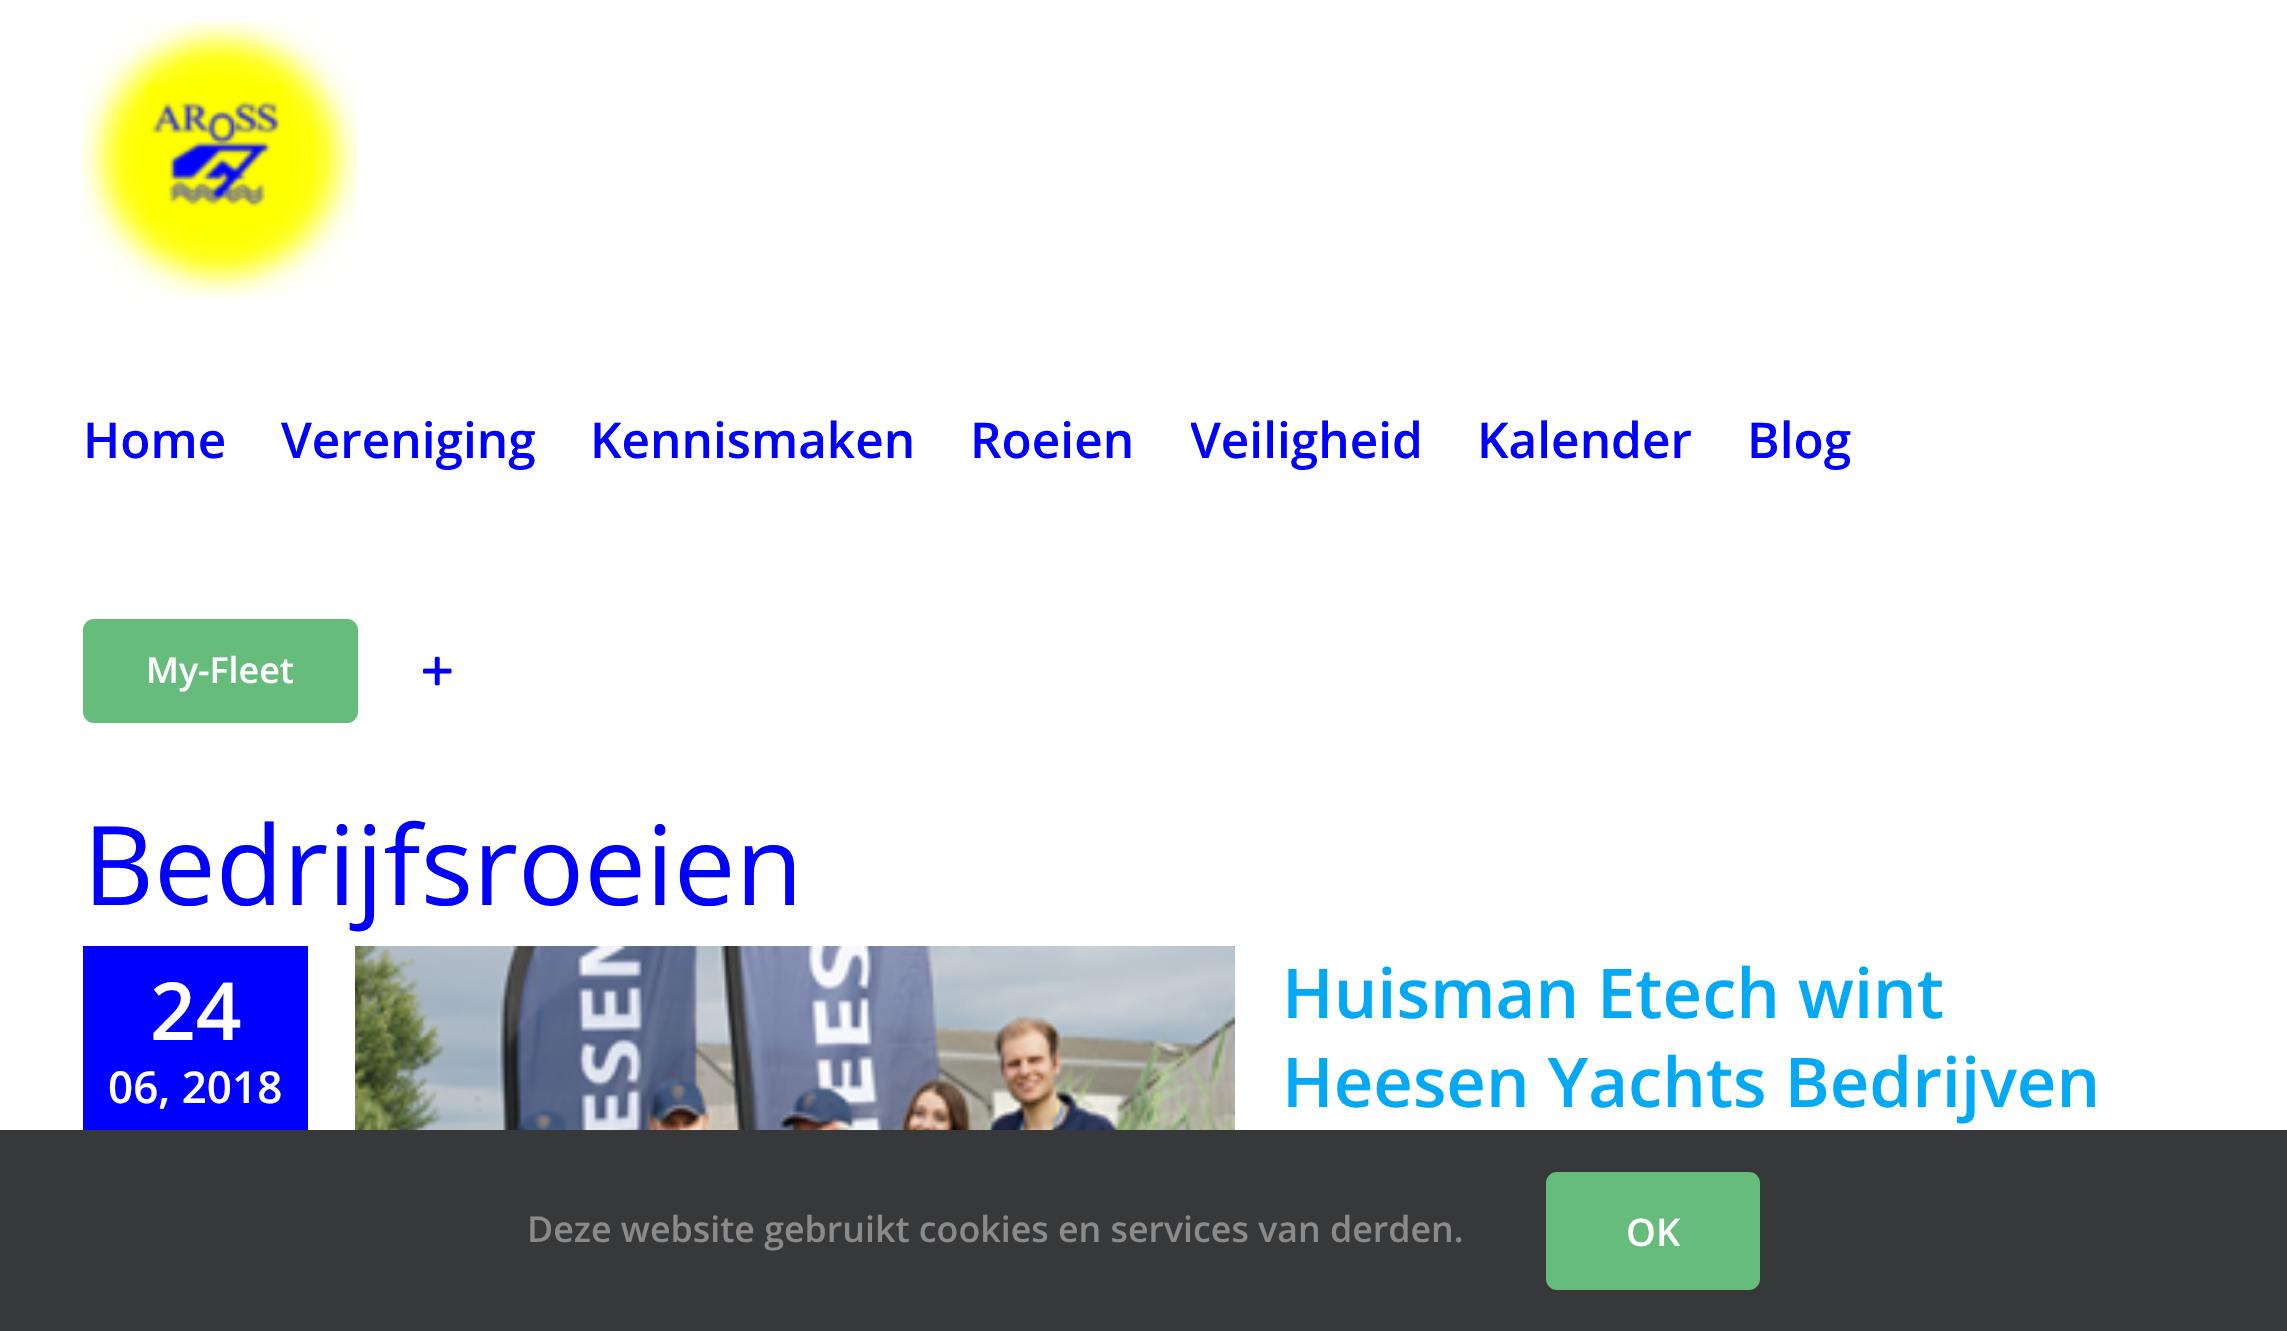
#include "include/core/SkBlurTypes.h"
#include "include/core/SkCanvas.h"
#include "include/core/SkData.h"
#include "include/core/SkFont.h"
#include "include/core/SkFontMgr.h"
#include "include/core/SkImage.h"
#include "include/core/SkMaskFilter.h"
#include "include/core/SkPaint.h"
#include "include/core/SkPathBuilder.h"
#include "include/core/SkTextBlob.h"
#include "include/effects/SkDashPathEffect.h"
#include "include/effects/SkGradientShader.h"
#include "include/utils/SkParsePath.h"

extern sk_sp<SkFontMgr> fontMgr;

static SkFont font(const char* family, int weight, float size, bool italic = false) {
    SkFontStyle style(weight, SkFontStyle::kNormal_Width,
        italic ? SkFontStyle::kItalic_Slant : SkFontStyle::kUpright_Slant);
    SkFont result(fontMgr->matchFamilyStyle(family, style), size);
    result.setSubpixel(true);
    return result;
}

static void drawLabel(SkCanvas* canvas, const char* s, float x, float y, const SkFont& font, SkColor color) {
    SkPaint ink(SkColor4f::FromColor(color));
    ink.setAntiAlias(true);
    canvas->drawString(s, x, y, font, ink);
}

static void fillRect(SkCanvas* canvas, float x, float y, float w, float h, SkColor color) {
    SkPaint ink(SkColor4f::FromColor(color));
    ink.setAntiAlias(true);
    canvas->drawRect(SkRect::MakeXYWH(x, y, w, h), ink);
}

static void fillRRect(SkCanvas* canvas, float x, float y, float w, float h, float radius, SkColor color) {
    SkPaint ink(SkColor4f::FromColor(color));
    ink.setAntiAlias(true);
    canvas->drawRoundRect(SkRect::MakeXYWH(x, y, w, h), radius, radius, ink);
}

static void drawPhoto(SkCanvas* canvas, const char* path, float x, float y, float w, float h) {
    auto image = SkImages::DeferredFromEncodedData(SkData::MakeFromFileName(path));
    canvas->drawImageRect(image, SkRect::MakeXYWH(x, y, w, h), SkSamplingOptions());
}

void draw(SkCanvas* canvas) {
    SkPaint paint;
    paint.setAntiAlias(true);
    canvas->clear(0xFFFFFFFF);
    drawPhoto(canvas, "assets/img1.png", 82, 22, 276, 275);
    SkFont font1 = font("Open Sans", 600, 49.5f);
    drawLabel(canvas, "Home", 83, 458, font1, 0xFF0000FF);
    drawLabel(canvas, "Vereniging", 281, 458, font1, 0xFF0000FF);
    drawLabel(canvas, "Kennismaken", 590, 458, font1, 0xFF0000FF);
    drawLabel(canvas, "Roeien", 970, 458, font1, 0xFF0000FF);
    canvas->save();
    canvas->clipRect(SkRect::MakeXYWH(1191, 319, 286, 231));
    drawLabel(canvas, "Veiligheid", 1190, 458, font1, 0xFF0000FF);
    canvas->restore();
    drawLabel(canvas, "Kalender", 1477, 458, font1, 0xFF0000FF);
    drawLabel(canvas, "Blog", 1747, 458, font1, 0xFF0000FF);
    fillRRect(canvas, 83, 619, 275, 104, 11, 0xFF65BC7B);
    SkFont font2 = font("Open Sans", 600, 35.75f);
    drawLabel(canvas, "My-Fleet", 146, 683, font2, 0xFFFFFFFF);
    drawPhoto(canvas, "assets/img2.png", 422, 656, 30, 30);
    SkFont font3 = font("Open Sans", 400, 110);
    drawLabel(canvas, "Bedrijfsroeien", 83, 905, font3, 0xFF0000FF);
    fillRect(canvas, 83, 946, 225, 184, 0xFF0000FF);
    SkFont font4 = font("Open Sans", 600, 80);
    drawLabel(canvas, "24", 150, 1040, font4, 0xFFFFFFFF);
    SkFont font5 = font("Open Sans", 600, 44);
    drawLabel(canvas, "06, 2018", 108, 1103, font5, 0xFFFFFFFF);
    drawPhoto(canvas, "assets/img3.png", 355, 946, 880, 184);
    SkFont font6 = font("Open Sans", 600, 68.75f);
    drawLabel(canvas, "Huisman Etech wint", 1282, 1018, font6, 0xFF03A9F4);
    drawLabel(canvas, "Heesen Yachts Bedrijven", 1282, 1107, font6, 0xFF03A9F4);
    fillRect(canvas, 0, 1130, 2287, 201, 0xFF363839);
    drawLabel(canvas, "Deze website gebruikt cookies en services van derden.", 527, 1242, font2, 0xFF8C8989);
    fillRRect(canvas, 1546, 1172, 214, 118, 11, 0xFF65BC7B);
    SkFont font7 = font("Open Sans", 600, 38);
    drawLabel(canvas, "OK", 1626, 1246, font7, 0xFFFFFFFF);
}
